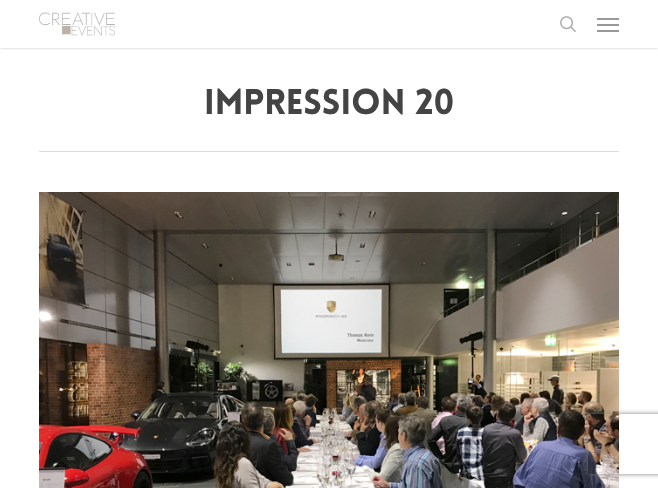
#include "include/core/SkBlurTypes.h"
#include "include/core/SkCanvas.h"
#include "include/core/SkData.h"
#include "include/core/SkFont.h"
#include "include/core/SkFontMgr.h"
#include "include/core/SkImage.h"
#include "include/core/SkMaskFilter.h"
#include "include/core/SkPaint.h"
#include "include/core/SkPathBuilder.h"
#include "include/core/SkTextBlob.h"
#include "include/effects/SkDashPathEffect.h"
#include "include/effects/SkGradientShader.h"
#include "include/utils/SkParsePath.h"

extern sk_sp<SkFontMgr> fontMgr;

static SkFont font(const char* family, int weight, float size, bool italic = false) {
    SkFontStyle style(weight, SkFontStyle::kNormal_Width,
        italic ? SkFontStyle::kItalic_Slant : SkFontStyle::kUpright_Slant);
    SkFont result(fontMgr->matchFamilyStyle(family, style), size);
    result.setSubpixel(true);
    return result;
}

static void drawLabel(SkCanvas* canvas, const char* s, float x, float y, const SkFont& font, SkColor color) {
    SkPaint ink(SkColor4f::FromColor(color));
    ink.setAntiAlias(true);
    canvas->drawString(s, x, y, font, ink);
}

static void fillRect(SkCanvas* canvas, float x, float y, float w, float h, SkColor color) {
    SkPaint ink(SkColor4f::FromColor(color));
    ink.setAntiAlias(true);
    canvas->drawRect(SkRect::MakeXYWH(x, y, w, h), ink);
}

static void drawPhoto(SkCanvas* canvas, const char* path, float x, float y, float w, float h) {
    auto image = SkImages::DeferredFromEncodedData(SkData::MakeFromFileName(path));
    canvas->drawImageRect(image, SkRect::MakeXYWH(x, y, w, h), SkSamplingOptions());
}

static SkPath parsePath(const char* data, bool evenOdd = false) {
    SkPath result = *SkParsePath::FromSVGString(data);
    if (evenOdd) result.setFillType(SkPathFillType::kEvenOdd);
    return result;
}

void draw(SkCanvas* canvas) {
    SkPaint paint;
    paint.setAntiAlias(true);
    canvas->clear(0xFFFFFFFF);
    canvas->save();
    canvas->clipRect(SkRect::MakeXYWH(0, 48, 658, 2));
    paint.setColor(0x38000000);
    paint.setMaskFilter(SkMaskFilter::MakeBlur(kNormal_SkBlurStyle, 1.5f));
    canvas->drawRect(SkRect::MakeXYWH(0, 0, 658, 48), paint);
    paint.setMaskFilter(nullptr);
    canvas->restore();
    drawPhoto(canvas, "assets/img1.png", 39, 12, 77, 24);
    drawPhoto(canvas, "assets/img2.png", 560, 16, 16, 16);
    fillRect(canvas, 597, 18, 22, 2, 0xFF999999);
    fillRect(canvas, 597, 30, 22, 2, 0xFF999999);
    fillRect(canvas, 597, 24, 22, 2, 0xFF999999);
    fillRect(canvas, 39, 151, 580, 1, 0xFFDDDDDD);
    SkFont font1 = font("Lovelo", 900, 35);
    drawLabel(canvas, "IMPRESSION 20", 204, 114, font1, 0xFF444444);
    drawPhoto(canvas, "assets/img3.png", 39, 192, 580, 296);
    canvas->save();
    canvas->clipPath(parsePath("M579 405H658V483H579ZM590 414H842C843 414 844 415 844 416V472C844 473 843 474 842 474H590C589 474 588 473 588 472V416C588 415 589 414 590 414Z", true), true);
    paint.setColor(0xFF808080);
    paint.setMaskFilter(SkMaskFilter::MakeBlur(kNormal_SkBlurStyle, 2.5f));
    canvas->drawRoundRect(SkRect::MakeXYWH(588, 414, 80, 60), 2, 2, paint);
    paint.setMaskFilter(nullptr);
    canvas->restore();
}
